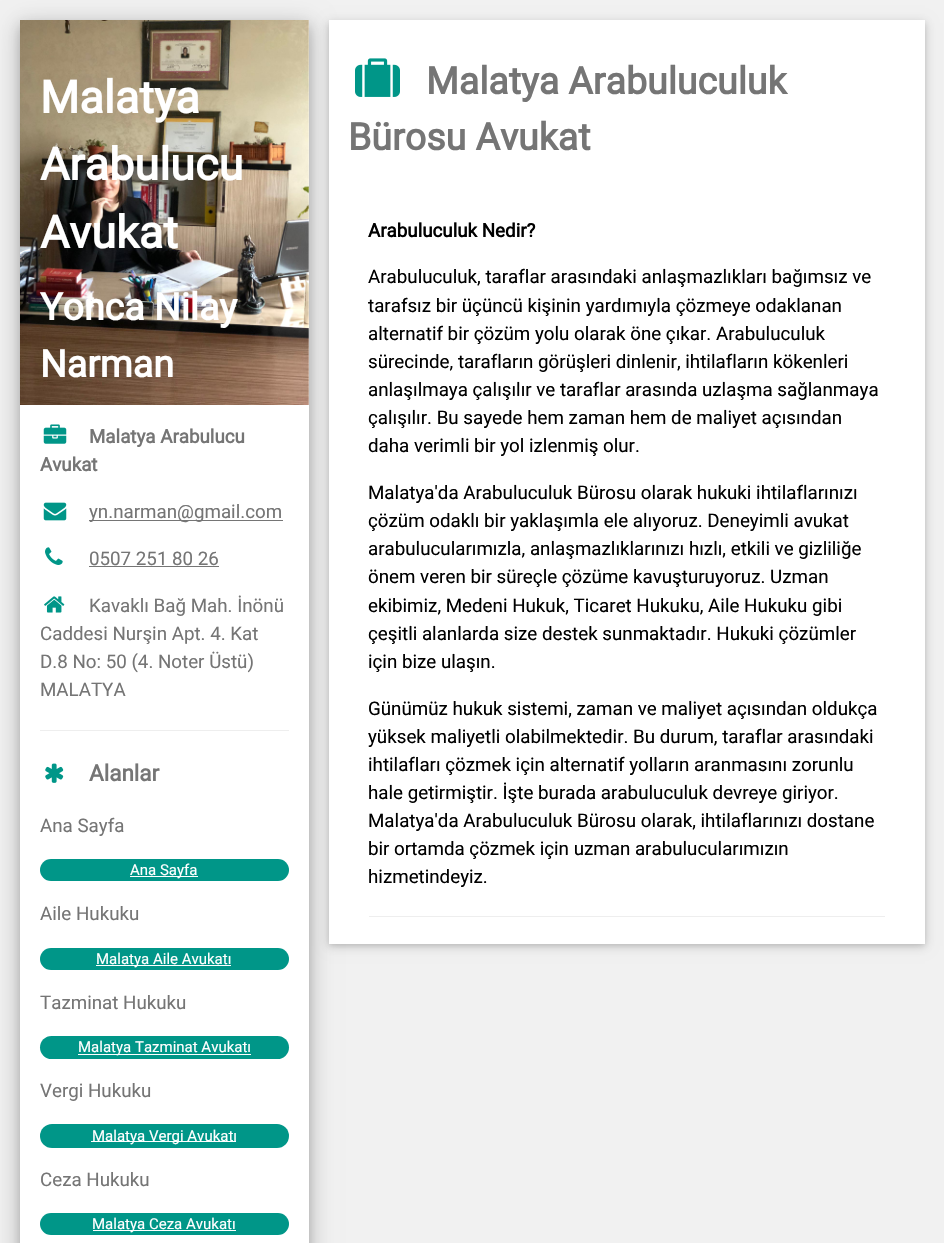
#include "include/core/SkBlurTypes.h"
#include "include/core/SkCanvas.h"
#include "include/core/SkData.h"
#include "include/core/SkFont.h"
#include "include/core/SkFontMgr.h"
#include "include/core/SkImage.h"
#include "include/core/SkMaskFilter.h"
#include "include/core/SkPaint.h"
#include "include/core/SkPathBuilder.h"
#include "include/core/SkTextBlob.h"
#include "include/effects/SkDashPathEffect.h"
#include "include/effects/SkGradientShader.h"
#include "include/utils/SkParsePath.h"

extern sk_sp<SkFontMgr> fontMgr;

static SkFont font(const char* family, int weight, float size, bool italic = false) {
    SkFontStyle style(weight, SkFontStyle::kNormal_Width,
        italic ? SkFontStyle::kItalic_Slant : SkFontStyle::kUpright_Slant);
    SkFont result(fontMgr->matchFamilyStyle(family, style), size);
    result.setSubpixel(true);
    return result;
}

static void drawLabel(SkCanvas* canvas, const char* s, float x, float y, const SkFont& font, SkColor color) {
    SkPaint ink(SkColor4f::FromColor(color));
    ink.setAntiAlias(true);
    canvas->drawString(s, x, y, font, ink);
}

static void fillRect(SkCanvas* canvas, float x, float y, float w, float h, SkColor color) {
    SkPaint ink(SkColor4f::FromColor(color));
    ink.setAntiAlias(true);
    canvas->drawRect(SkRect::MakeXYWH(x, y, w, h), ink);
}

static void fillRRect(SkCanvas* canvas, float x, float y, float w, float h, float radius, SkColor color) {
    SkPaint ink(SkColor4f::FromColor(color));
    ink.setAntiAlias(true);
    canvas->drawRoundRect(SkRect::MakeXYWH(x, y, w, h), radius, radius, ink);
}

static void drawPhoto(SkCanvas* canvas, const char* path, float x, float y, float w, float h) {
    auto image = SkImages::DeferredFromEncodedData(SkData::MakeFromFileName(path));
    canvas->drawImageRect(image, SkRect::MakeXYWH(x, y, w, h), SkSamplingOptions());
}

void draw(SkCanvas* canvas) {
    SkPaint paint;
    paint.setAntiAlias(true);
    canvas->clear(0xFFF1F1F1);
    paint.setColor(0x30000000);
    paint.setMaskFilter(SkMaskFilter::MakeBlur(kNormal_SkBlurStyle, 12.5f));
    canvas->drawRect(SkRect::MakeXYWH(20, 25, 289, 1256), paint);
    paint.setMaskFilter(nullptr);
    paint.setColor(0x33000000);
    paint.setMaskFilter(SkMaskFilter::MakeBlur(kNormal_SkBlurStyle, 6));
    canvas->drawRect(SkRect::MakeXYWH(20, 25, 289, 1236), paint);
    paint.setMaskFilter(nullptr);
    fillRect(canvas, 20, 20, 289, 1223, 0xFFFFFFFF);
    drawPhoto(canvas, "assets/img1.png", 20, 20, 289, 385);
    SkFont font1 = font("Roboto", 700, 45);
    drawLabel(canvas, "Malatya", 40, 113, font1, 0xFFFFFFFF);
    drawLabel(canvas, "Arabulucu", 40, 180, font1, 0xFFFFFFFF);
    drawLabel(canvas, "Avukat", 40, 248, font1, 0xFFFFFFFF);
    SkFont font2 = font("Roboto", 700, 37.5f);
    drawLabel(canvas, "Yonca Nilay", 40, 320, font2, 0xFFFFFFFF);
    drawLabel(canvas, "Narman", 40, 377, font2, 0xFFFFFFFF);
    drawPhoto(canvas, "assets/img2.png", 43, 424, 24, 20);
    SkFont font3 = font("Roboto", 700, 18.75f);
    drawLabel(canvas, "Malatya Arabulucu", 89, 443, font3, 0xFF757575);
    drawLabel(canvas, "Avukat", 40, 471, font3, 0xFF757575);
    drawPhoto(canvas, "assets/img3.png", 43, 502, 24, 19);
    fillRect(canvas, 89, 520, 194, 1, 0xFF757575);
    SkFont font4 = font("Roboto", 400, 18.75f);
    drawLabel(canvas, "yn.narman@gmail.com", 89, 518, font4, 0xFF757575);
    drawPhoto(canvas, "assets/img4.png", 45, 547, 18, 18);
    drawLabel(canvas, "0507 251 80 26", 89, 565, font4, 0xFF757575);
    fillRect(canvas, 89, 566, 130, 1, 0xFF757575);
    drawPhoto(canvas, "assets/img5.png", 44, 596, 21, 17);
    drawLabel(canvas, "Kavaklı Bağ Mah. İnönü", 89, 612, font4, 0xFF757575);
    drawLabel(canvas, "Caddesi Nurşin Apt. 4. Kat", 40, 640, font4, 0xFF757575);
    drawLabel(canvas, "D.8 No: 50 (4. Noter Üstü)", 40, 668, font4, 0xFF757575);
    drawLabel(canvas, "MALATYA", 40, 696, font4, 0xFF757575);
    fillRect(canvas, 40, 730, 249, 1, 0xFFEEEEEE);
    drawPhoto(canvas, "assets/img6.png", 45, 763, 19, 20);
    SkFont font5 = font("Roboto", 700, 22.5f);
    drawLabel(canvas, "Alanlar", 89, 781, font5, 0xFF757575);
    drawLabel(canvas, "Ana Sayfa", 40, 832, font4, 0xFF757575);
    fillRRect(canvas, 40, 859, 249, 22, 11, 0xFF009688);
    fillRect(canvas, 130, 876, 68, 1, 0xFFFFFFFF);
    SkFont font6 = font("Roboto", 400, 15);
    drawLabel(canvas, "Ana Sayfa", 130, 875, font6, 0xFFFFFFFF);
    drawLabel(canvas, "Aile Hukuku", 40, 920, font4, 0xFF757575);
    fillRRect(canvas, 40, 948, 249, 22, 11, 0xFF009688);
    fillRect(canvas, 96, 965, 135, 1, 0xFFFFFFFF);
    drawLabel(canvas, "Malatya Aile Avukatı", 96, 964, font6, 0xFFFFFFFF);
    drawLabel(canvas, "Tazminat Hukuku", 40, 1009, font4, 0xFF757575);
    fillRRect(canvas, 40, 1036, 249, 23, 11.5f, 0xFF009688);
    fillRect(canvas, 78, 1054, 173, 1, 0xFFFFFFFF);
    drawLabel(canvas, "Malatya Tazminat Avukatı", 78, 1052, font6, 0xFFFFFFFF);
    drawLabel(canvas, "Vergi Hukuku", 40, 1097, font4, 0xFF757575);
    fillRRect(canvas, 40, 1124, 249, 24, 12, 0xFF009688);
    fillRect(canvas, 91, 1141, 145, 1, 0xFFFFFFFF);
    drawLabel(canvas, "Malatya Vergi Avukatı", 92, 1141, font6, 0xFFFFFFFF);
    drawLabel(canvas, "Ceza Hukuku", 40, 1186, font4, 0xFF757575);
    fillRRect(canvas, 40, 1213, 249, 22, 11, 0xFF009688);
    fillRect(canvas, 93, 1230, 143, 1, 0xFFFFFFFF);
    drawLabel(canvas, "Malatya Ceza Avukatı", 92, 1229, font6, 0xFFFFFFFF);
    paint.setColor(0x1F000000);
    paint.setMaskFilter(SkMaskFilter::MakeBlur(kNormal_SkBlurStyle, 6));
    canvas->drawRect(SkRect::MakeXYWH(329, 23, 596, 923), paint);
    paint.setMaskFilter(nullptr);
    paint.setColor(0x29000000);
    paint.setMaskFilter(SkMaskFilter::MakeBlur(kNormal_SkBlurStyle, 3));
    canvas->drawRect(SkRect::MakeXYWH(329, 23, 596, 923), paint);
    paint.setMaskFilter(nullptr);
    fillRect(canvas, 329, 20, 596, 924, 0xFFFFFFFF);
    drawPhoto(canvas, "assets/img7.png", 355, 58, 45, 39);
    drawLabel(canvas, "Malatya Arabuluculuk", 426, 94, font2, 0xFF757575);
    drawLabel(canvas, "Bürosu Avukat", 348, 150, font2, 0xFF757575);
    drawLabel(canvas, "Arabuluculuk Nedir?", 368, 237, font3, 0xFF000000);
    drawLabel(canvas, "Arabuluculuk, taraflar arasındaki anlaşmazlıkları bağımsız ve", 368, 283, font4, 0xFF000000);
    drawLabel(canvas, "tarafsız bir üçüncü kişinin yardımıyla çözmeye odaklanan", 368, 312, font4, 0xFF000000);
    drawLabel(canvas, "alternatif bir çözüm yolu olarak öne çıkar. Arabuluculuk", 368, 340, font4, 0xFF000000);
    drawLabel(canvas, "sürecinde, tarafların görüşleri dinlenir, ihtilafların kökenleri", 368, 368, font4, 0xFF000000);
    drawLabel(canvas, "anlaşılmaya çalışılır ve taraflar arasında uzlaşma sağlanmaya", 368, 396, font4, 0xFF000000);
    drawLabel(canvas, "çalışılır. Bu sayede hem zaman hem de maliyet açısından", 368, 424, font4, 0xFF000000);
    drawLabel(canvas, "daha verimli bir yol izlenmiş olur.", 368, 452, font4, 0xFF000000);
    drawLabel(canvas, "Malatya'da Arabuluculuk Bürosu olarak hukuki ihtilaflarınızı", 368, 499, font4, 0xFF000000);
    drawLabel(canvas, "çözüm odaklı bir yaklaşımla ele alıyoruz. Deneyimli avukat", 368, 527, font4, 0xFF000000);
    drawLabel(canvas, "arabulucularımızla, anlaşmazlıklarınızı hızlı, etkili ve gizliliğe", 368, 555, font4, 0xFF000000);
    drawLabel(canvas, "önem veren bir süreçle çözüme kavuşturuyoruz. Uzman", 368, 583, font4, 0xFF000000);
    drawLabel(canvas, "ekibimiz, Medeni Hukuk, Ticaret Hukuku, Aile Hukuku gibi", 368, 612, font4, 0xFF000000);
    drawLabel(canvas, "çeşitli alanlarda size destek sunmaktadır. Hukuki çözümler", 368, 640, font4, 0xFF000000);
    drawLabel(canvas, "için bize ulaşın.", 368, 668, font4, 0xFF000000);
    drawLabel(canvas, "Günümüz hukuk sistemi, zaman ve maliyet açısından oldukça", 368, 715, font4, 0xFF000000);
    drawLabel(canvas, "yüksek maliyetli olabilmektedir. Bu durum, taraflar arasındaki", 368, 743, font4, 0xFF000000);
    drawLabel(canvas, "ihtilafları çözmek için alternatif yolların aranmasını zorunlu", 368, 771, font4, 0xFF000000);
    drawLabel(canvas, "hale getirmiştir. İşte burada arabuluculuk devreye giriyor.", 368, 799, font4, 0xFF000000);
    drawLabel(canvas, "Malatya'da Arabuluculuk Bürosu olarak, ihtilaflarınızı dostane", 368, 827, font4, 0xFF000000);
    drawLabel(canvas, "bir ortamda çözmek için uzman arabulucularımızın", 368, 855, font4, 0xFF000000);
    drawLabel(canvas, "hizmetindeyiz.", 368, 883, font4, 0xFF000000);
    fillRect(canvas, 369, 916, 516, 1, 0xFFEEEEEE);
}
